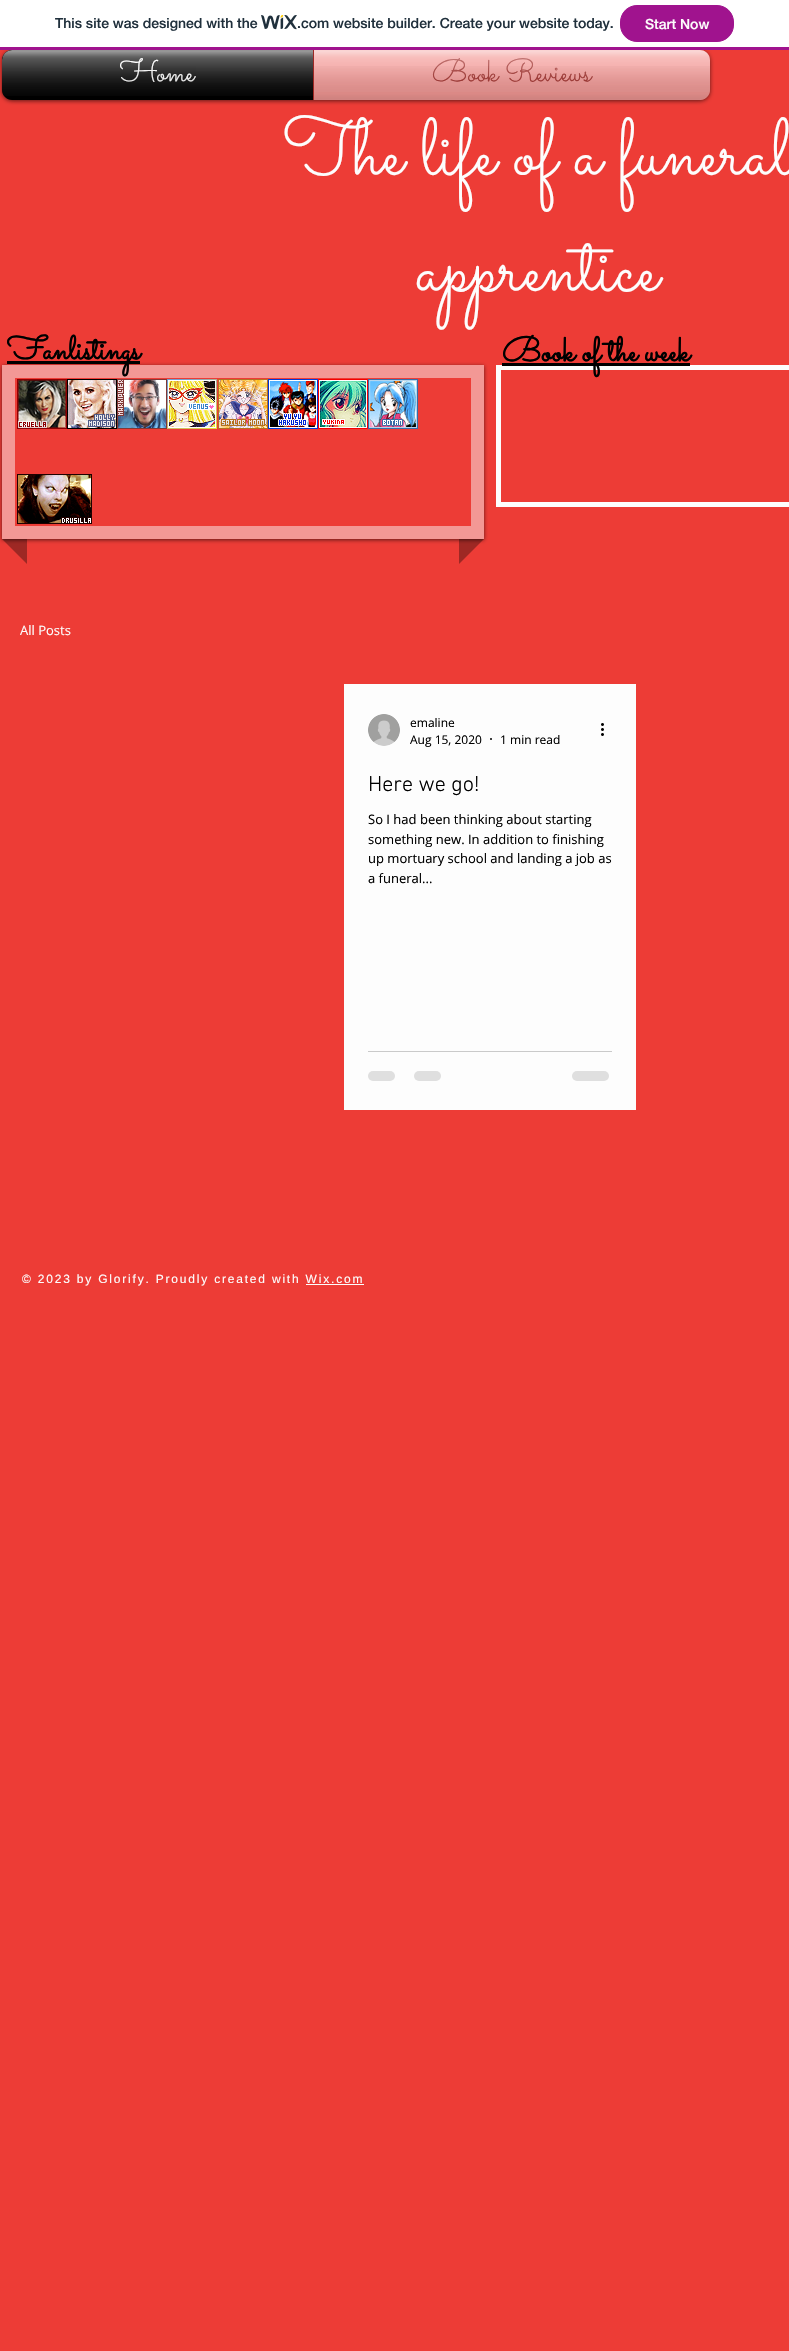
#include "include/core/SkBlurTypes.h"
#include "include/core/SkCanvas.h"
#include "include/core/SkData.h"
#include "include/core/SkFont.h"
#include "include/core/SkFontMgr.h"
#include "include/core/SkImage.h"
#include "include/core/SkMaskFilter.h"
#include "include/core/SkPaint.h"
#include "include/core/SkPathBuilder.h"
#include "include/core/SkTextBlob.h"
#include "include/effects/SkDashPathEffect.h"
#include "include/effects/SkGradientShader.h"
#include "include/utils/SkParsePath.h"

extern sk_sp<SkFontMgr> fontMgr;

static SkFont font(const char* family, int weight, float size, bool italic = false) {
    SkFontStyle style(weight, SkFontStyle::kNormal_Width,
        italic ? SkFontStyle::kItalic_Slant : SkFontStyle::kUpright_Slant);
    SkFont result(fontMgr->matchFamilyStyle(family, style), size);
    result.setSubpixel(true);
    return result;
}

static void drawLabel(SkCanvas* canvas, const char* s, float x, float y, const SkFont& font, SkColor color) {
    SkPaint ink(SkColor4f::FromColor(color));
    ink.setAntiAlias(true);
    canvas->drawString(s, x, y, font, ink);
}

static void drawTracked(SkCanvas* canvas, const char* s, float x, float y, const SkFont& font, const SkPaint& ink, float letter, float word) {
    std::vector<SkGlyphID> glyphs(font.countText(s, strlen(s), SkTextEncoding::kUTF8));
    std::vector<float> xs(glyphs.size());
    font.textToGlyphs(s, strlen(s), SkTextEncoding::kUTF8, glyphs);
    font.getXPos(glyphs, xs, x);
    float extra = 0;
    for (size_t i = 0; i < glyphs.size(); i++) {
        xs[i] += extra;
        extra += letter + word * (glyphs[i] == font.unicharToGlyph(' '));
    }
    canvas->drawTextBlob(SkTextBlob::MakeFromPosHGlyphs(glyphs, xs, y, font), 0, 0, ink);
}

static void fillRect(SkCanvas* canvas, float x, float y, float w, float h, SkColor color) {
    SkPaint ink(SkColor4f::FromColor(color));
    ink.setAntiAlias(true);
    canvas->drawRect(SkRect::MakeXYWH(x, y, w, h), ink);
}

static void fillRRect(SkCanvas* canvas, float x, float y, float w, float h, float radius, SkColor color) {
    SkPaint ink(SkColor4f::FromColor(color));
    ink.setAntiAlias(true);
    canvas->drawRoundRect(SkRect::MakeXYWH(x, y, w, h), radius, radius, ink);
}

static void drawPhoto(SkCanvas* canvas, const char* path, float x, float y, float w, float h) {
    auto image = SkImages::DeferredFromEncodedData(SkData::MakeFromFileName(path));
    canvas->drawImageRect(image, SkRect::MakeXYWH(x, y, w, h), SkSamplingOptions());
}

static SkPath parsePath(const char* data, bool evenOdd = false) {
    SkPath result = *SkParsePath::FromSVGString(data);
    if (evenOdd) result.setFillType(SkPathFillType::kEvenOdd);
    return result;
}

void draw(SkCanvas* canvas) {
    SkPaint paint;
    paint.setAntiAlias(true);
    canvas->clear(0xFFED3C36);
    paint.setColor(0x99000000);
    paint.setMaskFilter(SkMaskFilter::MakeBlur(kNormal_SkBlurStyle, 2));
    canvas->drawRoundRect(SkRect::MakeXYWH(2, 51, 708, 50), 10, 10, paint);
    paint.setMaskFilter(nullptr);
    fillRect(canvas, 0, 0, 789, 47, 0xFFFFFFFF);
    fillRect(canvas, 0, 47, 789, 3, 0xFFA0138E);
    SkFont font1 = font("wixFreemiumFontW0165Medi", 500, 14);
    drawLabel(canvas, "This site was designed with the", 55, 28, font1, 0xFF20303C);
    drawPhoto(canvas, "assets/img1.png", 261, 15, 36, 15);
    drawLabel(canvas, ".com website builder. Create your website today.", 297, 28, font1, 0xFF20303C);
    paint.setColor(0xFFA0138E);
    canvas->drawRoundRect(SkRect::MakeXYWH(620.5f, 5.5f, 113, 36), 16.5f, 16.5f, paint);
    paint.setStroke(true);
    paint.setStrokeWidth(1);
    canvas->drawRoundRect(SkRect::MakeXYWH(620.5f, 5.5f, 113, 36), 16.5f, 16.5f, paint);
    drawLabel(canvas, "Start Now", 645, 29, font1, 0xFFFDFDFD);
    drawPhoto(canvas, "assets/img2.png", 2, 50, 708, 42);
    drawPhoto(canvas, "assets/img3.png", 2, 90, 708, 10);
    paint.setStroke(false);
    paint.setColor(0xFF000000);
    canvas->drawPath(parsePath("M12 50H313V100H12C6.5 100 2 95.5 2 90V60C2 54.5 6.5 50 12 50Z"), paint);
    SkFont font2 = font("Sacramento", 400, 31);
    drawLabel(canvas, "Home", 120, 81, font2, 0xFFFDFDFD);
    drawPhoto(canvas, "assets/img4.png", 2, 50, 311, 46);
    drawPhoto(canvas, "assets/img5.png", 121, 66, 75, 16);
    paint.setColor(0xFFF39895);
    canvas->drawPath(parsePath("M313 50H700C705.5 50 710 54.5 710 60V90C710 95.5 705.5 100 700 100H313Z"), paint);
    fillRect(canvas, 313, 50, 1, 50, 0xFF9E2824);
    drawLabel(canvas, "Book Reviews", 432, 81, font2, 0xFF9E2824);
    drawPhoto(canvas, "assets/img6.png", 314, 50, 396, 42);
    drawPhoto(canvas, "assets/img7.png", 314, 66, 396, 34);
    SkFont font3 = font("Sacramento", 400, 80);
    drawLabel(canvas, "The life of a funeral", 283, 174, font3, 0xFFFDFDFD);
    drawLabel(canvas, "apprentice", 416, 290, font3, 0xFFFDFDFD);
    paint.setColor(0xFF9E2824);
    canvas->drawPath(parsePath("M2 539H27V564Z"), paint);
    canvas->drawPath(parsePath("M459 539H484L459 564Z"), paint);
    canvas->save();
    canvas->clipPath(parsePath("M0 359H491V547H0ZM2 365H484V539H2Z", true), true);
    paint.setColor(0x99000000);
    paint.setMaskFilter(SkMaskFilter::MakeBlur(kNormal_SkBlurStyle, 2));
    canvas->drawRect(SkRect::MakeXYWH(2, 366, 482, 174), paint);
    paint.setMaskFilter(nullptr);
    canvas->restore();
    fillRect(canvas, 7, 361, 133, 3, 0xFF000000);
    paint.setStroke(true);
    paint.setStrokeWidth(13);
    paint.setColor(0xFFF39895);
    canvas->drawRect(SkRect::MakeXYWH(8.5f, 371.5f, 469, 161), paint);
    SkFont font4 = font("Sacramento", 700, 33);
    drawLabel(canvas, "Fanlistings", 7, 359, font4, 0xFF000000);
    drawPhoto(canvas, "assets/img8.png", 17, 379, 50, 50);
    drawPhoto(canvas, "assets/img9.png", 67, 379, 50, 50);
    drawPhoto(canvas, "assets/img10.png", 117, 379, 50, 50);
    drawPhoto(canvas, "assets/img11.png", 167, 379, 50, 50);
    drawPhoto(canvas, "assets/img12.png", 218, 379, 50, 50);
    drawPhoto(canvas, "assets/img13.png", 268, 379, 50, 50);
    drawPhoto(canvas, "assets/img14.png", 318, 379, 50, 50);
    drawPhoto(canvas, "assets/img15.png", 368, 379, 50, 50);
    drawPhoto(canvas, "assets/img16.png", 17, 474, 75, 50);
    paint.setStrokeWidth(5);
    paint.setColor(0xFFFDFDFD);
    canvas->drawRect(SkRect::MakeXYWH(498.5f, 367.5f, 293, 137), paint);
    fillRect(canvas, 502, 363, 188, 3, 0xFF000000);
    SkFont font5 = font("Sacramento", 700, 34);
    drawLabel(canvas, "Book of the week", 502, 361, font5, 0xFF000000);
    SkFont font6 = font("Open Sans", 400, 13);
    drawLabel(canvas, "All Posts", 20, 635, font6, 0xFFFDFDFD);
    fillRect(canvas, 344, 684, 292, 426, 0xFFFDFDFD);
    drawPhoto(canvas, "assets/img17.png", 368, 714, 32, 32);
    SkFont font7 = font("Open Sans", 400, 12);
    drawLabel(canvas, "emaline", 410, 727, font7, 0xFF000000);
    drawLabel(canvas, "Aug 15, 2020", 410, 744, font7, 0xFF000000);
    paint.setStroke(false);
    paint.setColor(0xFF000000);
    canvas->drawCircle(491, 739, 1, paint);
    drawLabel(canvas, "1 min read", 500, 744, font7, 0xFF000000);
    drawPhoto(canvas, "assets/img18.png", 601, 723, 3, 13);
    SkFont font8 = font("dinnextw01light", 300, 22);
    drawLabel(canvas, "Here we go!", 368, 791, font8, 0xFF000000);
    drawLabel(canvas, "So I had been thinking about starting", 368, 824, font6, 0xFF000000);
    drawLabel(canvas, "something new. In addition to finishing", 368, 844, font6, 0xFF000000);
    drawLabel(canvas, "up mortuary school and landing a job as", 368, 863, font6, 0xFF000000);
    drawLabel(canvas, "a funeral...", 368, 883, font6, 0xFF000000);
    fillRect(canvas, 368, 1051, 244, 1, 0xFFCACACA);
    fillRRect(canvas, 368, 1071, 27, 10, 5, 0xFFDFDFDF);
    fillRRect(canvas, 414, 1071, 27, 10, 5, 0xFFDFDFDF);
    fillRRect(canvas, 572, 1071, 37, 10, 5, 0xFFDFDFDF);
    SkFont font9 = font("Liberation Sans", 400, 12);
    paint.setColor(0xFFFDFDFD);
    drawTracked(canvas, "© 2023 by Glorify. Proudly created with Wix.com", 22, 1283, font9, paint, 1.8f, 0);
    fillRect(canvas, 306, 1284, 58, 1, 0xFFFDFDFD);
}
